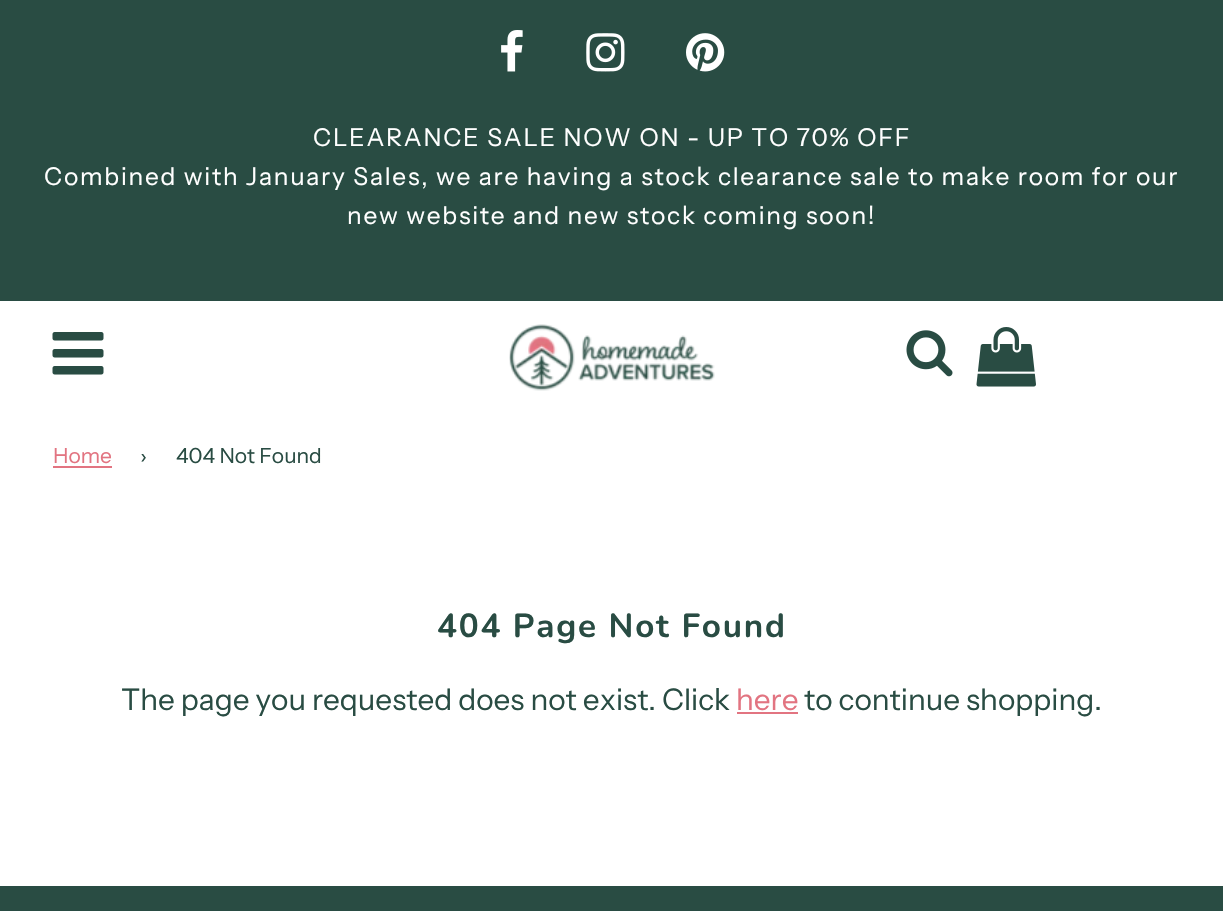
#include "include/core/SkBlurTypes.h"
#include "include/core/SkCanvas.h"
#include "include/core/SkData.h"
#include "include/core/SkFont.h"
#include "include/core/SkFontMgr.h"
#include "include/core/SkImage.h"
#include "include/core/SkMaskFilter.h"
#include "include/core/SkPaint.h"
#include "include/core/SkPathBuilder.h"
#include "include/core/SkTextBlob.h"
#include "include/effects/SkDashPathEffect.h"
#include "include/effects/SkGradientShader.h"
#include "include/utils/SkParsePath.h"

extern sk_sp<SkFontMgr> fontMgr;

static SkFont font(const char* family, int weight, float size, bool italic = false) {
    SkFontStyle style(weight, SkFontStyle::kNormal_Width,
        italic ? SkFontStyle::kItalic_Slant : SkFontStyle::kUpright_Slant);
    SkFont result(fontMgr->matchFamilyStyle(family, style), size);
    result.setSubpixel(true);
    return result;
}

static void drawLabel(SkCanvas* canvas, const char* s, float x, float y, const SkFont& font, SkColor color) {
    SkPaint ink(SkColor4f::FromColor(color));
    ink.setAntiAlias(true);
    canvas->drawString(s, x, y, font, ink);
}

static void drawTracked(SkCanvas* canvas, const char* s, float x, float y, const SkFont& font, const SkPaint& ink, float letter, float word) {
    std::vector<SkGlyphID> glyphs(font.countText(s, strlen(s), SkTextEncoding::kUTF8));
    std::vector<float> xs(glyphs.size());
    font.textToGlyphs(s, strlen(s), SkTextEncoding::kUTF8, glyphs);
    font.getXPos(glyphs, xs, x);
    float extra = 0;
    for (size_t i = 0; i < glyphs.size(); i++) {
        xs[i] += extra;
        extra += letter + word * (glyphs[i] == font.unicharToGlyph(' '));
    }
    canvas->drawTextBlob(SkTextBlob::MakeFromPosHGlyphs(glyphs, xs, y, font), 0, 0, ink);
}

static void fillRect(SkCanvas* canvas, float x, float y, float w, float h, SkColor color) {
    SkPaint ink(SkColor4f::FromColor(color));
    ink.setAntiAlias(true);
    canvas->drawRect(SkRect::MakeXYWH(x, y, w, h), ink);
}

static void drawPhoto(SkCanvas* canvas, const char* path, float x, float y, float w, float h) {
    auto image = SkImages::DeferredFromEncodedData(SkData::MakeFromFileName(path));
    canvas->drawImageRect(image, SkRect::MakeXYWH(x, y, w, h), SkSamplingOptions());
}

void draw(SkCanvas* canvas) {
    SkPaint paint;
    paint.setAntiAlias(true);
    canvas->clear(0xFFFFFFFF);
    fillRect(canvas, 0, 0, 1223, 301, 0xFF294C43);
    drawPhoto(canvas, "assets/img1.png", 501, 30, 22, 42);
    drawPhoto(canvas, "assets/img2.png", 586, 33, 39, 39);
    drawPhoto(canvas, "assets/img3.png", 686, 33, 39, 39);
    SkFont font1 = font("Instrument Sans", 400, 24.5f);
    paint.setColor(0xFFFFFFFF);
    drawTracked(canvas, "CLEARANCE SALE NOW ON - UP TO 70% OFF", 313, 146, font1, paint, 1.75f, 0);
    drawTracked(canvas, "Combined with January Sales, we are having a stock clearance sale to make room for our", 44, 185, font1, paint, 1.75f, 0);
    drawTracked(canvas, "new website and new stock coming soon!", 347, 224, font1, paint, 1.75f, 0);
    drawPhoto(canvas, "assets/img4.png", 52, 332, 52, 43);
    drawPhoto(canvas, "assets/img5.png", 509, 324, 206, 67);
    drawPhoto(canvas, "assets/img6.png", 906, 330, 47, 47);
    drawPhoto(canvas, "assets/img7.png", 976, 327, 60, 60);
    SkFont font2 = font("Instrument Sans", 400, 21);
    drawLabel(canvas, "Home", 53, 463, font2, 0xFFE27481);
    fillRect(canvas, 53, 466, 59, 2, 0xFFE27481);
    drawLabel(canvas, "›", 140, 463, font2, 0xFF294C43);
    drawLabel(canvas, "404 Not Found", 176, 463, font2, 0xFF294C43);
    SkFont font3 = font("Nunito", 700, 33.25f);
    paint.setColor(0xFF294C43);
    drawTracked(canvas, "404 Page Not Found", 437, 637, font3, paint, 1.75f, 0);
    SkFont font4 = font("Instrument Sans", 400, 29.75f);
    drawLabel(canvas, "The page you requested does not exist. Click", 121, 710, font4, 0xFF294C43);
    drawLabel(canvas, "here", 736, 710, font4, 0xFFE27481);
    fillRect(canvas, 737, 712, 61, 2, 0xFFE27481);
    drawLabel(canvas, "to continue shopping.", 804, 710, font4, 0xFF294C43);
    fillRect(canvas, 0, 886, 1223, 25, 0xFF294C43);
}
